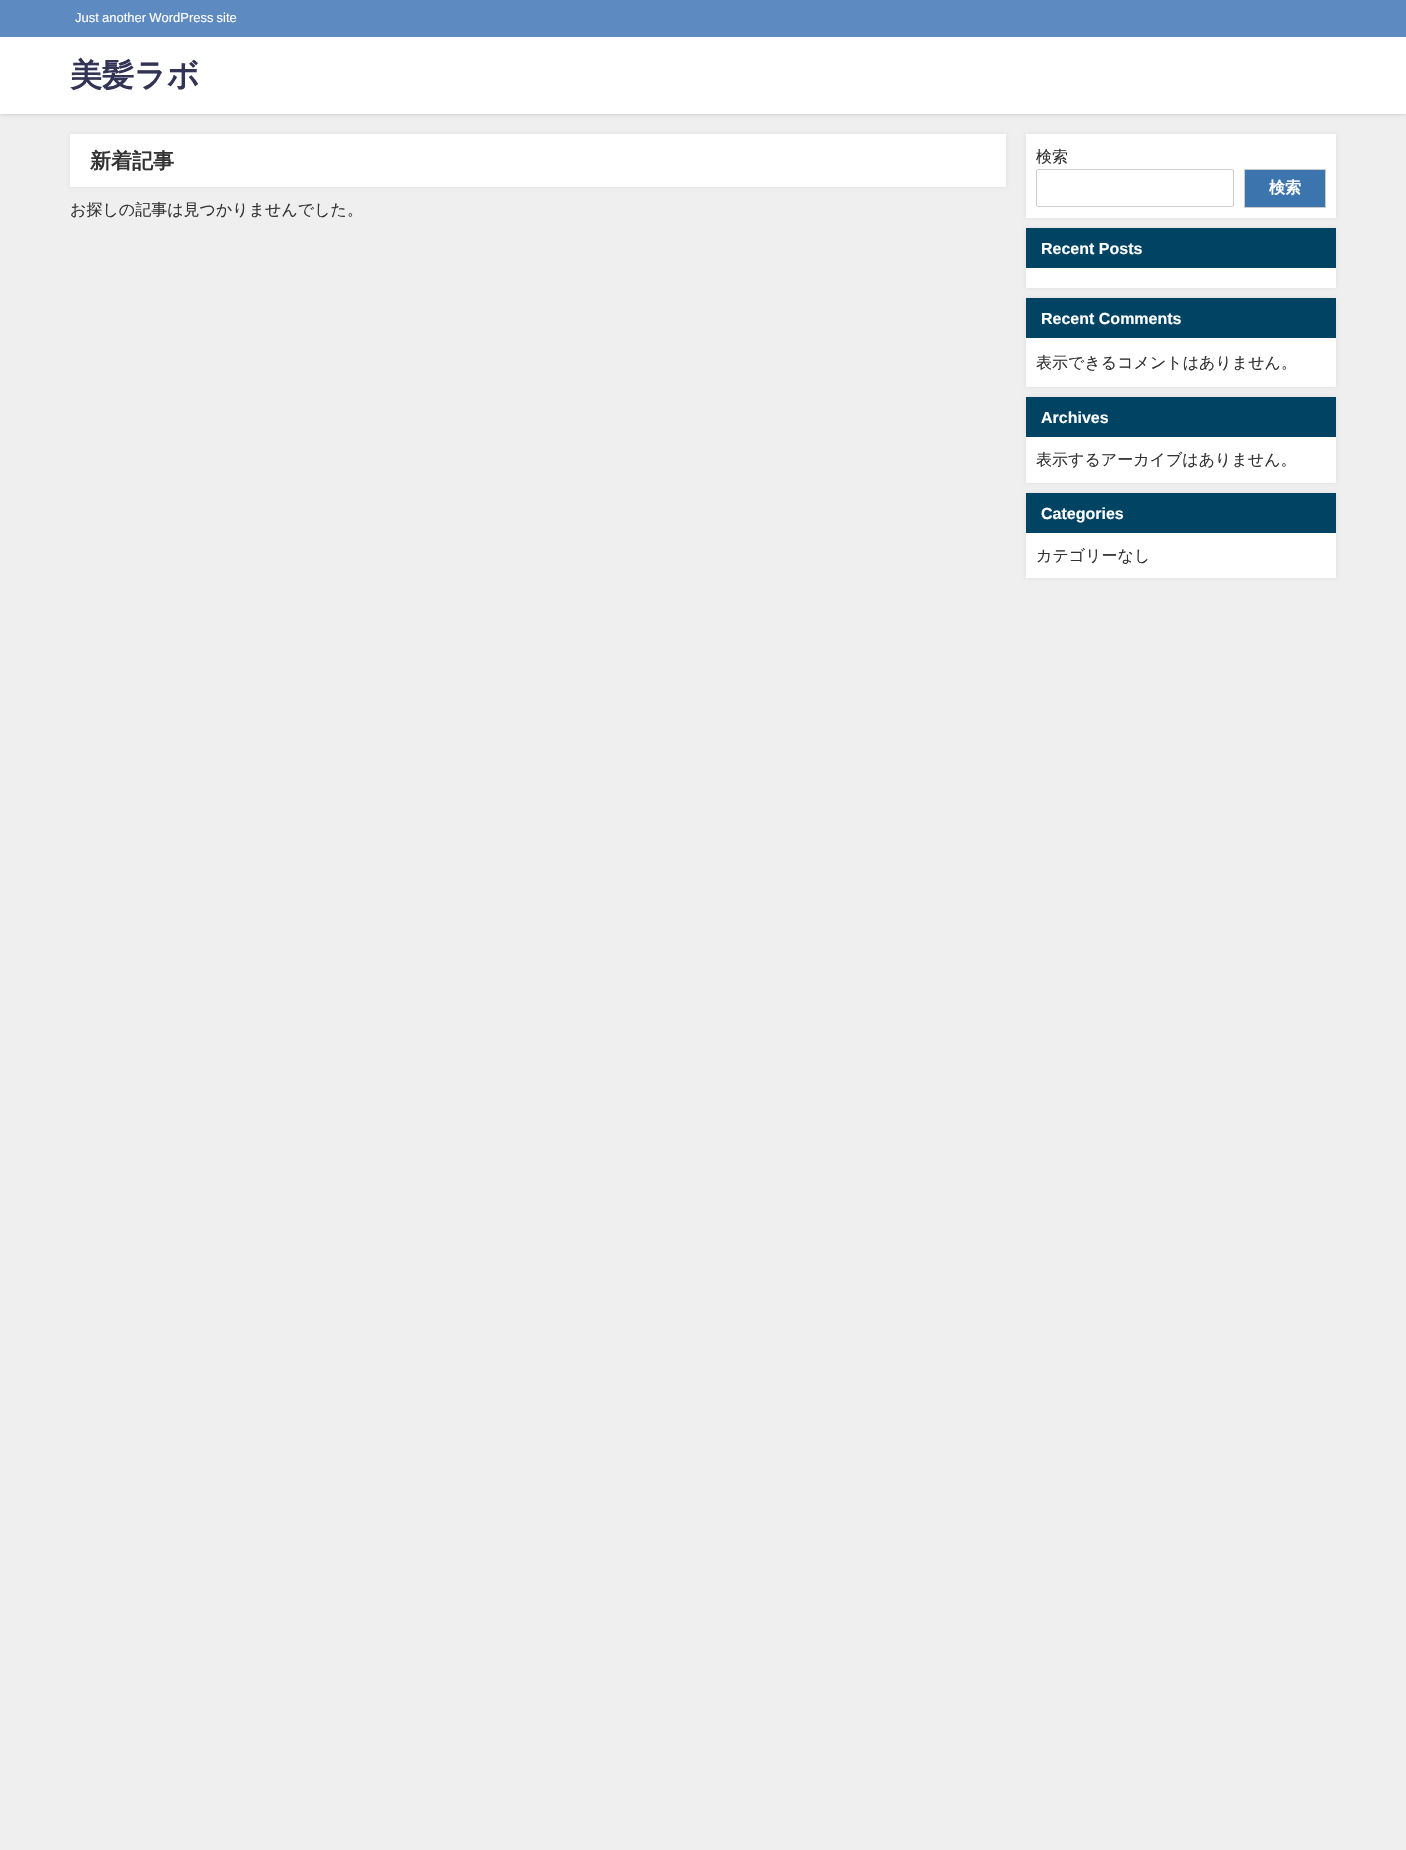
#include "include/core/SkBlurTypes.h"
#include "include/core/SkCanvas.h"
#include "include/core/SkData.h"
#include "include/core/SkFont.h"
#include "include/core/SkFontMgr.h"
#include "include/core/SkImage.h"
#include "include/core/SkMaskFilter.h"
#include "include/core/SkPaint.h"
#include "include/core/SkPathBuilder.h"
#include "include/core/SkTextBlob.h"
#include "include/effects/SkDashPathEffect.h"
#include "include/effects/SkGradientShader.h"
#include "include/utils/SkParsePath.h"

extern sk_sp<SkFontMgr> fontMgr;

static SkFont font(const char* family, int weight, float size, bool italic = false) {
    SkFontStyle style(weight, SkFontStyle::kNormal_Width,
        italic ? SkFontStyle::kItalic_Slant : SkFontStyle::kUpright_Slant);
    SkFont result(fontMgr->matchFamilyStyle(family, style), size);
    result.setSubpixel(true);
    return result;
}

static void drawLabel(SkCanvas* canvas, const char* s, float x, float y, const SkFont& font, SkColor color) {
    SkPaint ink(SkColor4f::FromColor(color));
    ink.setAntiAlias(true);
    canvas->drawString(s, x, y, font, ink);
}

static void drawTracked(SkCanvas* canvas, const char* s, float x, float y, const SkFont& font, const SkPaint& ink, float letter, float word) {
    std::vector<SkGlyphID> glyphs(font.countText(s, strlen(s), SkTextEncoding::kUTF8));
    std::vector<float> xs(glyphs.size());
    font.textToGlyphs(s, strlen(s), SkTextEncoding::kUTF8, glyphs);
    font.getXPos(glyphs, xs, x);
    float extra = 0;
    for (size_t i = 0; i < glyphs.size(); i++) {
        xs[i] += extra;
        extra += letter + word * (glyphs[i] == font.unicharToGlyph(' '));
    }
    canvas->drawTextBlob(SkTextBlob::MakeFromPosHGlyphs(glyphs, xs, y, font), 0, 0, ink);
}

static void fillRect(SkCanvas* canvas, float x, float y, float w, float h, SkColor color) {
    SkPaint ink(SkColor4f::FromColor(color));
    ink.setAntiAlias(true);
    canvas->drawRect(SkRect::MakeXYWH(x, y, w, h), ink);
}

void draw(SkCanvas* canvas) {
    SkPaint paint;
    paint.setAntiAlias(true);
    canvas->clear(0xFFEFEFEF);
    paint.setColor(0x33000000);
    paint.setMaskFilter(SkMaskFilter::MakeBlur(kNormal_SkBlurStyle, 2));
    canvas->drawRect(SkRect::MakeXYWH(0, 0, 1406, 114), paint);
    paint.setMaskFilter(nullptr);
    fillRect(canvas, 0, 37, 1406, 77, 0xFFFFFFFF);
    fillRect(canvas, 0, 0, 1406, 37, 0xFF5D8AC1);
    SkFont font1 = font("Liberation Sans", 400, 13);
    paint.setColor(0xFFFFFFFF);
    drawTracked(canvas, "Just another WordPress site", 75, 22, font1, paint, 0, -0.5f);
    SkFont font2 = font("WenQuanYi Zen Hei", 700, 32);
    drawLabel(canvas, "美髪ラボ", 70, 86, font2, 0xFF333355);
    paint.setColor(0x33969696);
    paint.setMaskFilter(SkMaskFilter::MakeBlur(kNormal_SkBlurStyle, 2.5f));
    canvas->drawRect(SkRect::MakeXYWH(70, 134, 936, 53), paint);
    paint.setMaskFilter(nullptr);
    fillRect(canvas, 70, 134, 936, 53, 0xFFFFFFFF);
    SkFont font3 = font("WenQuanYi Zen Hei", 700, 21);
    drawLabel(canvas, "新着記事", 90, 168, font3, 0xFF333333);
    SkFont font4 = font("WenQuanYi Zen Hei", 500, 16);
    drawLabel(canvas, "お探しの記事は見つかりませんでした。", 70, 215, font4, 0xFF333333);
    paint.setMaskFilter(SkMaskFilter::MakeBlur(kNormal_SkBlurStyle, 2.5f));
    canvas->drawRect(SkRect::MakeXYWH(1026, 134, 310, 84), paint);
    paint.setMaskFilter(nullptr);
    fillRect(canvas, 1026, 134, 310, 84, 0xFFFFFFFF);
    drawLabel(canvas, "検索", 1036, 162, font4, 0xFF333333);
    paint.setStroke(true);
    paint.setStrokeWidth(1);
    paint.setColor(0xFFCCCCCC);
    canvas->drawRoundRect(SkRect::MakeXYWH(1036.5f, 169.5f, 197, 37), 1.5f, 1.5f, paint);
    paint.setStroke(false);
    paint.setColor(0xFF3C74AD);
    canvas->drawRect(SkRect::MakeXYWH(1244.5f, 169.5f, 81, 38), paint);
    paint.setStroke(true);
    paint.setColor(0xFFCCCCCC);
    canvas->drawRect(SkRect::MakeXYWH(1244.5f, 169.5f, 81, 38), paint);
    SkFont font5 = font("WenQuanYi Zen Hei", 700, 16);
    drawLabel(canvas, "検索", 1269, 193, font5, 0xFFFFFFFF);
    paint.setStroke(false);
    paint.setColor(0x33969696);
    paint.setMaskFilter(SkMaskFilter::MakeBlur(kNormal_SkBlurStyle, 2.5f));
    canvas->drawRect(SkRect::MakeXYWH(1026, 228, 310, 60), paint);
    paint.setMaskFilter(nullptr);
    fillRect(canvas, 1026, 268, 310, 20, 0xFFFFFFFF);
    fillRect(canvas, 1026, 228, 310, 40, 0xFF004363);
    SkFont font6 = font("Liberation Sans", 700, 16);
    drawLabel(canvas, "Recent Posts", 1041, 254, font6, 0xFFFFFFFF);
    paint.setMaskFilter(SkMaskFilter::MakeBlur(kNormal_SkBlurStyle, 2.5f));
    canvas->drawRect(SkRect::MakeXYWH(1026, 298, 310, 89), paint);
    paint.setMaskFilter(nullptr);
    fillRect(canvas, 1026, 338, 310, 49, 0xFFFFFFFF);
    fillRect(canvas, 1026, 298, 310, 40, 0xFF004363);
    drawLabel(canvas, "Recent Comments", 1041, 324, font6, 0xFFFFFFFF);
    drawLabel(canvas, "表示できるコメントはありません。", 1036, 368, font4, 0xFF333333);
    paint.setMaskFilter(SkMaskFilter::MakeBlur(kNormal_SkBlurStyle, 2.5f));
    canvas->drawRect(SkRect::MakeXYWH(1026, 397, 310, 86), paint);
    paint.setMaskFilter(nullptr);
    fillRect(canvas, 1026, 437, 310, 46, 0xFFFFFFFF);
    fillRect(canvas, 1026, 397, 310, 40, 0xFF004363);
    drawLabel(canvas, "Archives", 1041, 423, font6, 0xFFFFFFFF);
    drawLabel(canvas, "表示するアーカイブはありません。", 1036, 465, font4, 0xFF333333);
    paint.setMaskFilter(SkMaskFilter::MakeBlur(kNormal_SkBlurStyle, 2.5f));
    canvas->drawRect(SkRect::MakeXYWH(1026, 493, 310, 85), paint);
    paint.setMaskFilter(nullptr);
    fillRect(canvas, 1026, 533, 310, 45, 0xFFFFFFFF);
    fillRect(canvas, 1026, 493, 310, 40, 0xFF004363);
    drawLabel(canvas, "Categories", 1041, 519, font6, 0xFFFFFFFF);
    drawLabel(canvas, "カテゴリーなし", 1036, 561, font4, 0xFF333333);
}
